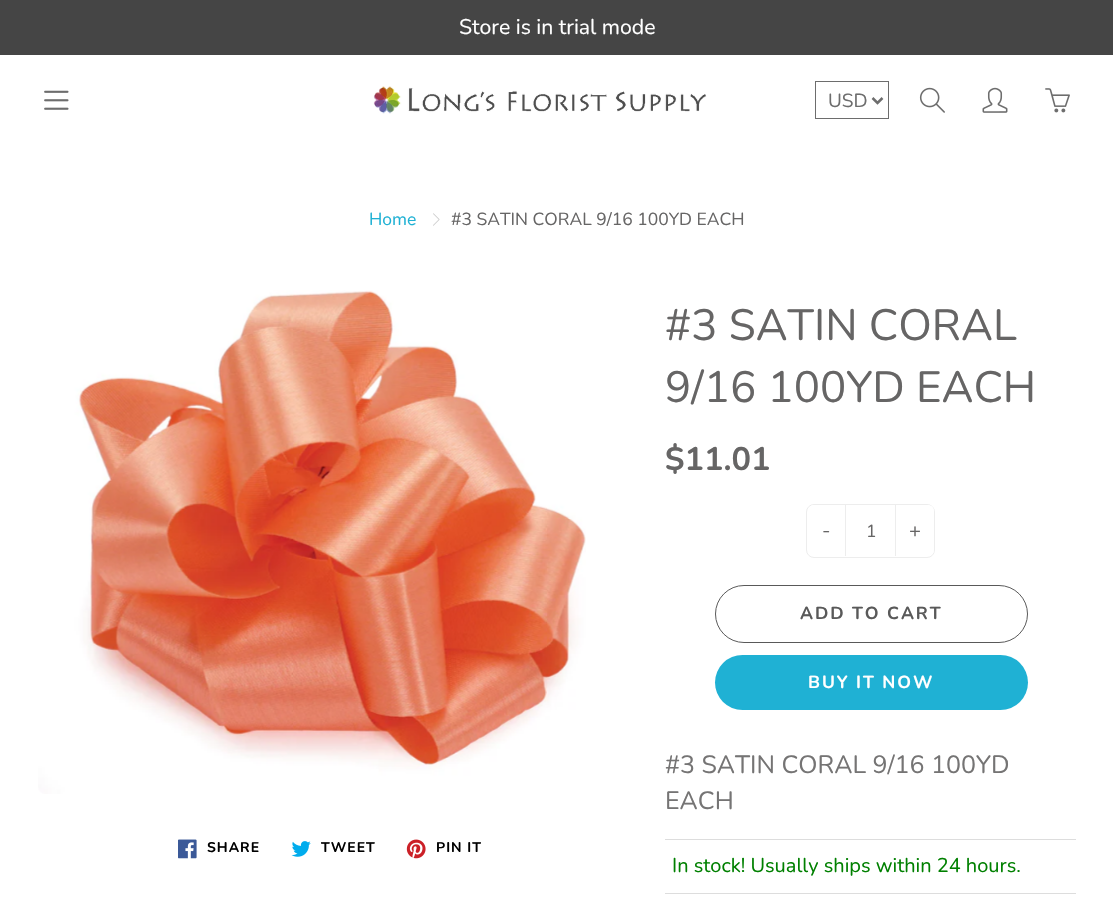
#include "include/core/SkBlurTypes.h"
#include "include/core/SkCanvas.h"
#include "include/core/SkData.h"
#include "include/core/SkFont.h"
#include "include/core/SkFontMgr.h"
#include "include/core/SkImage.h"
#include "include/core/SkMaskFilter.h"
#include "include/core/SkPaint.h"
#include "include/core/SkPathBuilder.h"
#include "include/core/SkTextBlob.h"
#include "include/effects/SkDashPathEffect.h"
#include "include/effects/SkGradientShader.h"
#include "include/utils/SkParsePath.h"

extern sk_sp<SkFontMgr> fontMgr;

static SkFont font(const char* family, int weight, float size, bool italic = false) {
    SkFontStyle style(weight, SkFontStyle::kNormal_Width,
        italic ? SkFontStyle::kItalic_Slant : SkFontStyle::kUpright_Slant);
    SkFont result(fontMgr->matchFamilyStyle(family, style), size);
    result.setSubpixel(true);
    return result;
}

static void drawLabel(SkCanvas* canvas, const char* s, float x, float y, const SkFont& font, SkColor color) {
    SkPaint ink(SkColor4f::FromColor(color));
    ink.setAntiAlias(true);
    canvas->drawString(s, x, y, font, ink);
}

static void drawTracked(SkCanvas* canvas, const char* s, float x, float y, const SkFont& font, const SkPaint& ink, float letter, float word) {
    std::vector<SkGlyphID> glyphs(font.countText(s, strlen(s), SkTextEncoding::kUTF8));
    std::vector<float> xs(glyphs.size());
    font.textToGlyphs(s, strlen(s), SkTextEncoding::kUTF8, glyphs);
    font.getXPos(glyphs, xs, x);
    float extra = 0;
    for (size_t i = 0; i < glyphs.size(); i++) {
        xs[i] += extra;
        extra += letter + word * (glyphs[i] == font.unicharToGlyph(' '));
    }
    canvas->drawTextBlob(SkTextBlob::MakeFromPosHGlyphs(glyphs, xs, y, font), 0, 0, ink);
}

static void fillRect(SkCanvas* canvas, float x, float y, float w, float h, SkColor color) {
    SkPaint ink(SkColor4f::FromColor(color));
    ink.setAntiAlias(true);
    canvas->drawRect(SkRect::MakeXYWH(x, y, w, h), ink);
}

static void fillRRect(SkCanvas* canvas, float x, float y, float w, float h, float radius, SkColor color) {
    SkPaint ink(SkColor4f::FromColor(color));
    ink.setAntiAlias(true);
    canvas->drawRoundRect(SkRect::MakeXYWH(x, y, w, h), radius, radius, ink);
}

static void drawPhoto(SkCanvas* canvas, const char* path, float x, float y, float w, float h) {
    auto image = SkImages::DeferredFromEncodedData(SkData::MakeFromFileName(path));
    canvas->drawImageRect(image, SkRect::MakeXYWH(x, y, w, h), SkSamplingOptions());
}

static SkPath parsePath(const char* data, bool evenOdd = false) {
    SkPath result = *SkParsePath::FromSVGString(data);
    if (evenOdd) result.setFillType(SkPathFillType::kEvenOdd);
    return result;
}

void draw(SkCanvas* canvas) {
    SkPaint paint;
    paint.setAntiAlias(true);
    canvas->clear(0xFFFFFFFF);
    fillRect(canvas, 0, 0, 1113, 55, 0xFF454545);
    SkFont font1 = font("Nunito", 400, 21.25f);
    drawLabel(canvas, "Store is in trial mode", 459, 34, font1, 0xFFFFFFFF);
    drawPhoto(canvas, "assets/img1.png", 373, 86, 334, 28);
    drawPhoto(canvas, "assets/img2.png", 44, 90, 25, 20);
    paint.setStroke(true);
    paint.setStrokeWidth(1);
    paint.setColor(0xFF6D6D6D);
    canvas->drawRect(SkRect::MakeXYWH(815.5f, 81.5f, 73, 37), paint);
    paint.setStrokeWidth(2.5f);
    canvas->drawPath(parsePath("M872.5 98L877.5 103L882.5 98"), paint);
    SkFont font2 = font("Nunito", 400, 19);
    drawLabel(canvas, "USD", 828, 107, font2, 0xFF6D6D6D);
    drawPhoto(canvas, "assets/img3.png", 919, 87, 26, 26);
    drawPhoto(canvas, "assets/img4.png", 982, 87, 26, 26);
    drawPhoto(canvas, "assets/img5.png", 1045, 88, 25, 25);
    SkFont font3 = font("Nunito", 400, 17.5f);
    drawLabel(canvas, "Home", 369, 225, font3, 0xFF1FB1D4);
    drawPhoto(canvas, "assets/img6.png", 433, 213, 7, 13);
    drawLabel(canvas, "#3 SATIN CORAL 9/16 100YD EACH", 451, 225, font3, 0xFF666565);
    drawPhoto(canvas, "assets/img7.png", 38, 290, 548, 504);
    drawPhoto(canvas, "assets/img8.png", 178, 839, 19, 20);
    SkFont font4 = font("Nunito", 700, 14);
    paint.setStroke(false);
    paint.setColor(0xFF000000);
    drawTracked(canvas, "SHARE", 207, 852, font4, paint, 1, 0);
    drawPhoto(canvas, "assets/img9.png", 291, 841, 20, 16);
    drawTracked(canvas, "TWEET", 321, 852, font4, paint, 1, 0);
    drawPhoto(canvas, "assets/img10.png", 406, 839, 20, 20);
    drawTracked(canvas, "PIN IT", 436, 852, font4, paint, 1, 0);
    SkFont font5 = font("Nunito", 400, 43.75f);
    drawLabel(canvas, "#3 SATIN CORAL", 665, 340, font5, 0xFF666565);
    drawLabel(canvas, "9/16 100YD EACH", 665, 402, font5, 0xFF666565);
    SkFont font6 = font("Nunito", 700, 32.5f);
    drawLabel(canvas, "$11.01", 665, 470, font6, 0xFF666565);
    paint.setStroke(true);
    paint.setStrokeWidth(1);
    paint.setColor(0xFFEDEDED);
    canvas->drawRoundRect(SkRect::MakeXYWH(806.5f, 504.5f, 128, 53), 7.5f, 7.5f, paint);
    paint.setStroke(false);
    paint.setColor(0xFFFFFFFF);
    canvas->drawPath(parsePath("M814 505H845V556H814C810.5 556 808 553.5 808 550V511C808 507.5 810.5 505 814 505Z"), paint);
    SkFont font7 = font("Nunito", 400, 20);
    drawLabel(canvas, "-", 822, 537, font7, 0xFF666565);
    fillRect(canvas, 895, 505, 1, 51, 0xFFEDEDED);
    fillRect(canvas, 845, 505, 1, 51, 0xFFEDEDED);
    drawLabel(canvas, "1", 866, 537, font3, 0xFF666565);
    canvas->drawPath(parsePath("M896 505H928C931.5 505 934 507.5 934 511V550C934 553.5 931.5 556 928 556H896Z"), paint);
    drawLabel(canvas, "+", 909, 537, font7, 0xFF666565);
    paint.setStroke(true);
    paint.setColor(0xFF595959);
    canvas->drawRoundRect(SkRect::MakeXYWH(715.5f, 585.5f, 312, 57), 28.5f, 28.5f, paint);
    SkFont font8 = font("Nunito", 700, 17.5f);
    paint.setStroke(false);
    drawTracked(canvas, "ADD TO CART", 800, 619, font8, paint, 1.9f, 0);
    fillRRect(canvas, 715, 655, 313, 55, 27.5f, 0xFF1FB1D4);
    paint.setColor(0xFFFFFFFF);
    drawTracked(canvas, "BUY IT NOW", 808, 688, font8, paint, 1.9f, 0);
    SkFont font9 = font("Nunito", 400, 25);
    drawLabel(canvas, "#3 SATIN CORAL 9/16 100YD", 665, 773, font9, 0xFF757474);
    drawLabel(canvas, "EACH", 665, 809, font9, 0xFF757474);
    fillRect(canvas, 665, 839, 411, 1, 0xFFDDDDDD);
    drawLabel(canvas, "In stock! Usually ships within 24 hours.", 672, 872, font7, 0xFF008000);
    fillRect(canvas, 665, 893, 411, 1, 0xFFDDDDDD);
}
